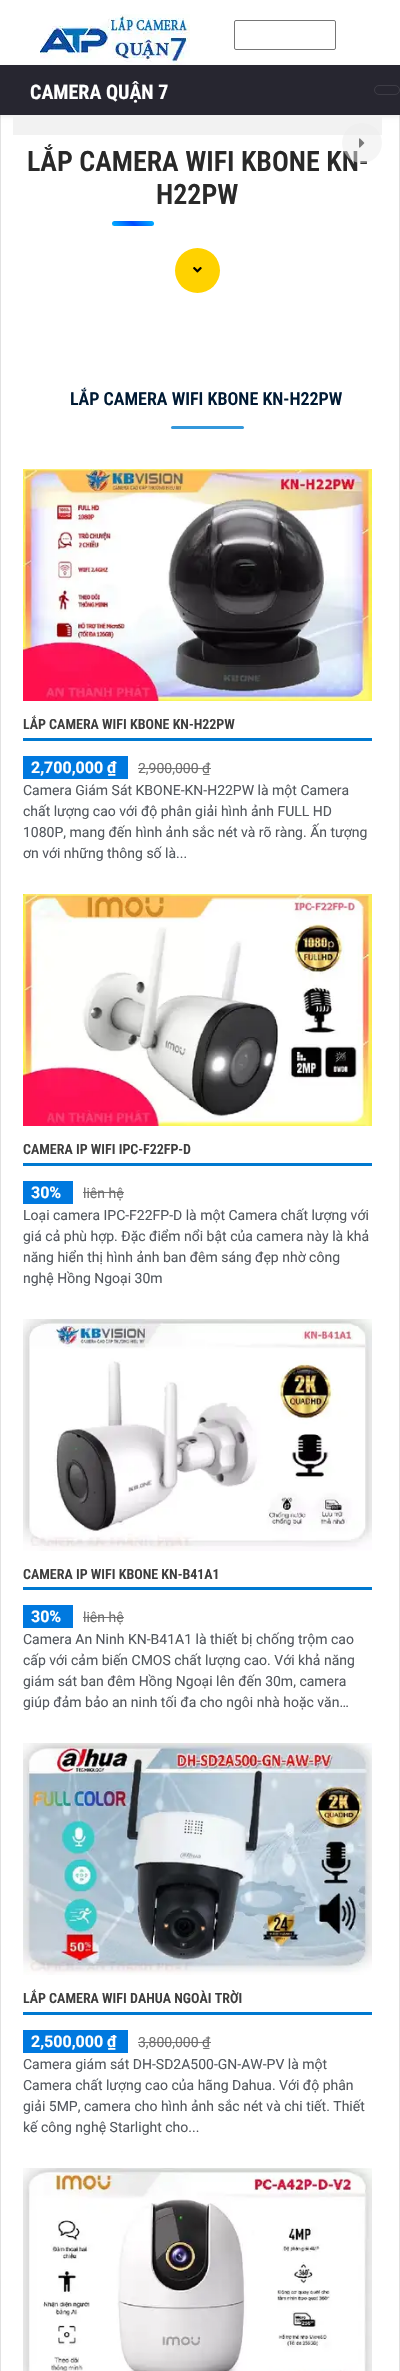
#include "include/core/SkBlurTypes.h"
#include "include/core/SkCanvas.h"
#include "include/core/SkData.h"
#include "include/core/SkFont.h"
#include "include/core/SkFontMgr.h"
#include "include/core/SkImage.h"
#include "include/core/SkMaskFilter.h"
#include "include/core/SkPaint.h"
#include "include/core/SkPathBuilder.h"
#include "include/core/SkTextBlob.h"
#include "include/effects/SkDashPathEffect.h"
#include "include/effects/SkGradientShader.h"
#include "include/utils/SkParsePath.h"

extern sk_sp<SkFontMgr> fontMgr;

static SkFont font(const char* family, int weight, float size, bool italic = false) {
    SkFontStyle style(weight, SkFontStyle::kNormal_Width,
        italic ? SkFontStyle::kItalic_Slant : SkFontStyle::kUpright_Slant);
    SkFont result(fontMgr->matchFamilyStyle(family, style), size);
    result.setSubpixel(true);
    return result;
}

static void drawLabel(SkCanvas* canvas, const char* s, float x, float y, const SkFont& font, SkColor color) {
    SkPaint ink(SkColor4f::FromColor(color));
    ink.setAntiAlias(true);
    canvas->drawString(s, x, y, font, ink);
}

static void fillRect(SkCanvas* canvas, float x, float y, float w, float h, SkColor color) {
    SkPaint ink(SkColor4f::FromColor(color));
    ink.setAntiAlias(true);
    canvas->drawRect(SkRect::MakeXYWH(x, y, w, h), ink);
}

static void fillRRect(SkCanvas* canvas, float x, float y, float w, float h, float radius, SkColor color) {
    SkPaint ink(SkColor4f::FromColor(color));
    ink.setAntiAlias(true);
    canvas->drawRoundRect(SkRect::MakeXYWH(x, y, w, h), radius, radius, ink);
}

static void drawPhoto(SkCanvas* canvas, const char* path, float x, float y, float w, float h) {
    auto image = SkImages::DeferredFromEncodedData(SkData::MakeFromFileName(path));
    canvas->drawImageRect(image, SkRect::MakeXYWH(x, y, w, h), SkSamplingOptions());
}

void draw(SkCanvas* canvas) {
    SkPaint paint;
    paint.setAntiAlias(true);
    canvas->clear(0xFFFFFFFF);
    drawPhoto(canvas, "assets/img1.png", 40, 14, 150, 51);
    paint.setStroke(true);
    paint.setStrokeWidth(1);
    paint.setColor(0xFF767676);
    canvas->drawRoundRect(SkRect::MakeXYWH(234.5f, 20.5f, 101, 29), 1.5f, 1.5f, paint);
    paint.setColor(0xFFE2E2E2);
    canvas->drawRect(SkRect::MakeXYWH(0.5f, 114.5f, 399, 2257), paint);
    paint.setStroke(false);
    paint.setColor(0x12000000);
    paint.setMaskFilter(SkMaskFilter::MakeBlur(kNormal_SkBlurStyle, 2));
    canvas->drawRect(SkRect::MakeXYWH(0, 67, 400, 50), paint);
    paint.setMaskFilter(nullptr);
    fillRect(canvas, 0, 65, 400, 50, 0xFF272630);
    SkFont font1 = font("Roboto Condensed", 700, 20);
    drawLabel(canvas, "CAMERA QUẬN 7", 30, 99, font1, 0xFFFFFFFF);
    paint.setStroke(true);
    paint.setColor(0xFF3D3C45);
    canvas->drawRoundRect(SkRect::MakeXYWH(374.5f, 85.5f, 25, 9), 4.5f, 4.5f, paint);
    fillRect(canvas, 13, 117, 369, 18, 0xFFF2F2F2);
    SkFont font2 = font("Roboto Condensed", 600, 28);
    drawLabel(canvas, "LẮP CAMERA WIFI KBONE KN-", 27, 171, font2, 0xFF292929);
    paint.setStroke(false);
    paint.setColor(0x80ECECEC);
    canvas->drawCircle(362, 143, 20, paint);
    drawPhoto(canvas, "assets/img2.png", 359, 138, 6, 10);
    drawLabel(canvas, "H22PW", 156, 204, font2, 0xFF292929);
    {
        const SkColor colors[] = {0xFF00B4FF, 0xFF004AFF, 0xFF00B4FF};
        const float stops[] = {0, 0.5f, 1};
        const SkPoint ends[] = {{121, 235}, {145, 212}};
        paint.setShader(SkGradientShader::MakeLinear(ends, colors, stops, 3, SkTileMode::kClamp));
        paint.setAlpha(255);
    }
    canvas->drawRoundRect(SkRect::MakeXYWH(112, 221, 42, 5), 2.5f, 2.5f, paint);
    paint.setShader(nullptr);
    paint.setColor(0xFFFFD200);
    canvas->drawCircle(197.5f, 270.5f, 22.5f, paint);
    drawPhoto(canvas, "assets/img3.png", 193, 267, 9, 6);
    SkFont font3 = font("Roboto Condensed", 600, 18);
    drawLabel(canvas, "LẮP CAMERA WIFI KBONE KN-H22PW", 70, 405, font3, 0xFF001A34);
    fillRRect(canvas, 171, 426, 73, 3, 1.5f, 0xFF3498DB);
    drawPhoto(canvas, "assets/img4.png", 23, 469, 349, 232);
    fillRect(canvas, 23, 738, 349, 3, 0xFF0079D0);
    SkFont font4 = font("Roboto Condensed", 600, 14);
    drawLabel(canvas, "LẮP CAMERA WIFI KBONE KN-H22PW", 23, 729, font4, 0xFF3E3E3E);
    fillRect(canvas, 23, 756, 105, 23, 0xFF0079DF);
    SkFont font5 = font("Roboto", 700, 16);
    drawLabel(canvas, "2,700,000 ₫", 31, 773, font5, 0xFFFFFFFF);
    SkFont font6 = font("Roboto", 400, 14);
    drawLabel(canvas, "2,900,000 ₫", 138, 773, font6, 0xFF717171);
    fillRect(canvas, 138, 768, 73, 1, 0xFF717171);
    drawLabel(canvas, "Camera Giám Sát KBONE-KN-H22PW là một Camera", 23, 795, font6, 0xFF54595F);
    drawLabel(canvas, "chất lượng cao với độ phân giải hình ảnh FULL HD", 23, 816, font6, 0xFF54595F);
    drawLabel(canvas, "1080P, mang đến hình ảnh sắc nét và rõ ràng. Ấn tượng", 23, 837, font6, 0xFF54595F);
    drawLabel(canvas, "ơn với những thông số là...", 23, 858, font6, 0xFF54595F);
    drawPhoto(canvas, "assets/img5.png", 23, 894, 349, 232);
    fillRect(canvas, 23, 1163, 349, 3, 0xFF0079D0);
    drawLabel(canvas, "CAMERA IP WIFI IPC-F22FP-D", 23, 1154, font4, 0xFF3E3E3E);
    fillRect(canvas, 23, 1181, 50, 23, 0xFF0079DF);
    drawLabel(canvas, "30%", 31, 1198, font5, 0xFFFFFFFF);
    drawLabel(canvas, "liên hệ", 83, 1198, font6, 0xFF717171);
    fillRect(canvas, 83, 1192, 41, 1, 0xFF717171);
    drawLabel(canvas, "Loại camera IPC-F22FP-D là một Camera chất lượng với", 23, 1220, font6, 0xFF54595F);
    drawLabel(canvas, "giá cả phù hợp. Đặc điểm nổi bật của camera này là khả", 23, 1241, font6, 0xFF54595F);
    drawLabel(canvas, "năng hiển thị hình ảnh ban đêm sáng đẹp nhờ công", 23, 1262, font6, 0xFF54595F);
    drawLabel(canvas, "nghệ Hồng Ngoại 30m", 23, 1283, font6, 0xFF54595F);
    drawPhoto(canvas, "assets/img6.png", 23, 1319, 349, 232);
    fillRect(canvas, 23, 1587, 349, 3, 0xFF0079D0);
    drawLabel(canvas, "CAMERA IP WIFI KBONE KN-B41A1", 23, 1579, font4, 0xFF3E3E3E);
    fillRect(canvas, 23, 1605, 50, 23, 0xFF0079DF);
    drawLabel(canvas, "30%", 31, 1622, font5, 0xFFFFFFFF);
    drawLabel(canvas, "liên hệ", 83, 1622, font6, 0xFF717171);
    fillRect(canvas, 83, 1617, 41, 1, 0xFF717171);
    drawLabel(canvas, "Camera An Ninh KN-B41A1 là thiết bị chống trộm cao", 23, 1644, font6, 0xFF54595F);
    drawLabel(canvas, "cấp với cảm biến CMOS chất lượng cao. Với khả năng", 23, 1665, font6, 0xFF54595F);
    drawLabel(canvas, "giám sát ban đêm Hồng Ngoại lên đến 30m, camera", 23, 1686, font6, 0xFF54595F);
    drawLabel(canvas, "giúp đảm bảo an ninh tối đa cho ngôi nhà hoặc văn…", 23, 1707, font6, 0xFF54595F);
    drawPhoto(canvas, "assets/img7.png", 23, 1743, 349, 232);
    fillRect(canvas, 23, 2012, 349, 3, 0xFF0079D0);
    drawLabel(canvas, "LẮP CAMERA WIFI DAHUA NGOÀI TRỜI", 23, 2003, font4, 0xFF3E3E3E);
    fillRect(canvas, 23, 2030, 105, 23, 0xFF0079DF);
    drawLabel(canvas, "2,500,000 ₫", 31, 2047, font5, 0xFFFFFFFF);
    drawLabel(canvas, "3,800,000 ₫", 138, 2047, font6, 0xFF717171);
    fillRect(canvas, 138, 2042, 73, 1, 0xFF717171);
    drawLabel(canvas, "Camera giám sát DH-SD2A500-GN-AW-PV là một", 23, 2069, font6, 0xFF54595F);
    drawLabel(canvas, "Camera chất lượng cao của hãng Dahua. Với độ phân", 23, 2090, font6, 0xFF54595F);
    drawLabel(canvas, "giải 5MP, camera cho hình ảnh sắc nét và chi tiết. Thiết", 23, 2111, font6, 0xFF54595F);
    drawLabel(canvas, "kế công nghệ Starlight cho...", 23, 2132, font6, 0xFF54595F);
    drawPhoto(canvas, "assets/img8.png", 23, 2168, 349, 203);
}
